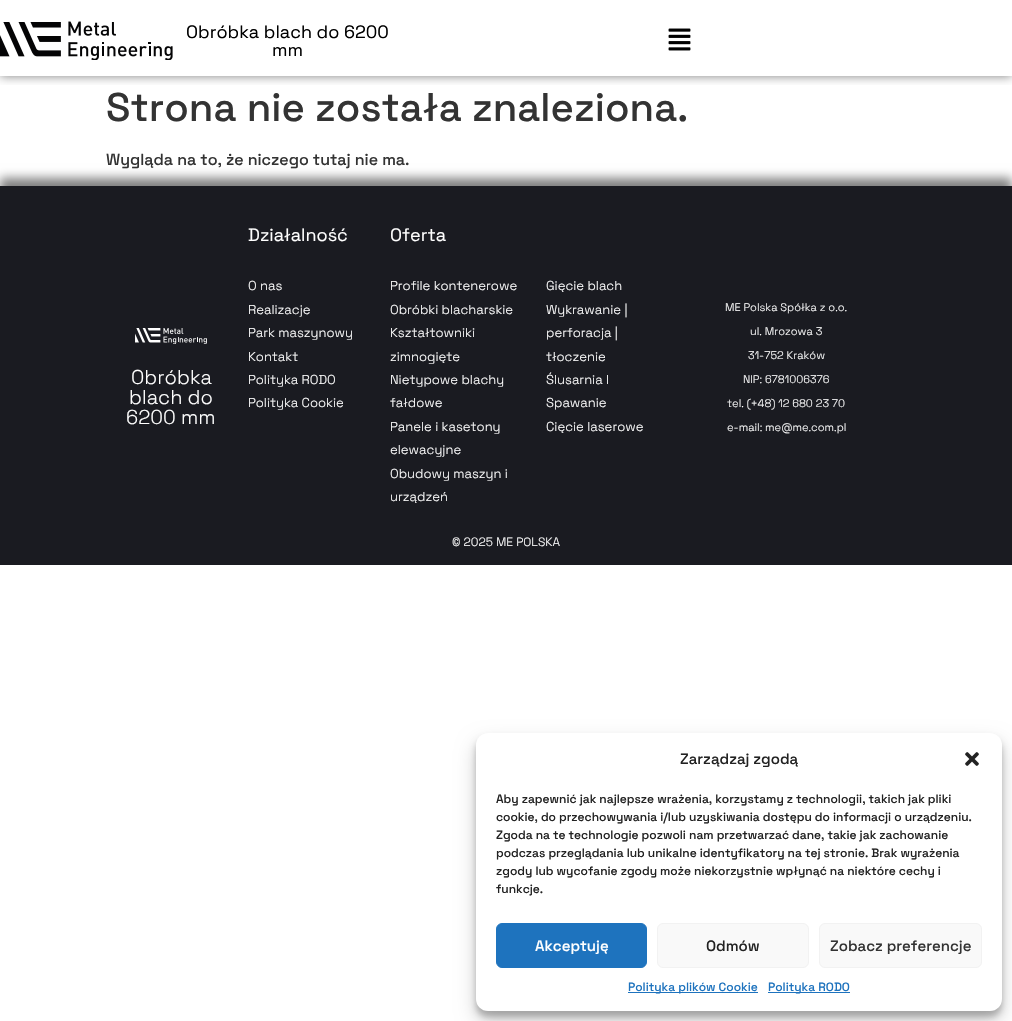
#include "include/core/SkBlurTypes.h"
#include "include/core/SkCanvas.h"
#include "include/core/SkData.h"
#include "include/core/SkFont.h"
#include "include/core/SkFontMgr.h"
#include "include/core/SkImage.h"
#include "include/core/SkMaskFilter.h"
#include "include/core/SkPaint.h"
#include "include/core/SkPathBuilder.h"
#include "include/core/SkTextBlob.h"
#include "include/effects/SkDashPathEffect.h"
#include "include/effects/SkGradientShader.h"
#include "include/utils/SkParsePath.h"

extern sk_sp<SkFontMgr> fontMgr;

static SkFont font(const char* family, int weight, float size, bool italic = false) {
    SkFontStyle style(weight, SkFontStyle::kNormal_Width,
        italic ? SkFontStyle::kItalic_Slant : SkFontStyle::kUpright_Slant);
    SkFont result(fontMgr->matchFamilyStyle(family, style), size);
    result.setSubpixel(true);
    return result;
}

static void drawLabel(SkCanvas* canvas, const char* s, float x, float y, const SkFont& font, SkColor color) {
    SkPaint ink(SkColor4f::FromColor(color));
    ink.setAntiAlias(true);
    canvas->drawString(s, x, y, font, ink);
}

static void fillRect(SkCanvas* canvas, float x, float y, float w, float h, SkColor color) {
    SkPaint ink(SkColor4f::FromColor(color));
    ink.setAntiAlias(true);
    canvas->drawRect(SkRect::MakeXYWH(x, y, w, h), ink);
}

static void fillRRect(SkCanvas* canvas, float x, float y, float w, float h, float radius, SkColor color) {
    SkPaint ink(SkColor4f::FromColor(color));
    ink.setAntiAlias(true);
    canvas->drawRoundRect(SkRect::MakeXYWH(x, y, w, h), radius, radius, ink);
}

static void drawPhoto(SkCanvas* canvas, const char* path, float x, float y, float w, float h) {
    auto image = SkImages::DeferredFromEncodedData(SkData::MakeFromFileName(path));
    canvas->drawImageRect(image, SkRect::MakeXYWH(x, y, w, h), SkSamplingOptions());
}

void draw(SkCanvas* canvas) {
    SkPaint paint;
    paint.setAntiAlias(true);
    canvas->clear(0xFFFFFFFF);
    canvas->save();
    canvas->clipRect(SkRect::MakeXYWH(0, 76, 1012, 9));
    paint.setColor(0x80000000);
    paint.setMaskFilter(SkMaskFilter::MakeBlur(kNormal_SkBlurStyle, 5));
    canvas->drawRect(SkRect::MakeXYWH(0, 0, 1012, 76), paint);
    paint.setMaskFilter(nullptr);
    canvas->restore();
    drawPhoto(canvas, "assets/img1.png", 0, 21, 173, 39);
    SkFont font1 = font("Space Grotesk", 400, 18);
    drawLabel(canvas, "Obróbka blach do 6200", 186, 38, font1, 0xFF000000);
    drawLabel(canvas, "mm", 272, 56, font1, 0xFF000000);
    drawPhoto(canvas, "assets/img2.png", 668, 28, 23, 23);
    SkFont font2 = font("Space Grotesk", 500, 40);
    drawLabel(canvas, "Strona nie została znaleziona.", 106, 121, font2, 0xFF333333);
    SkFont font3 = font("Space Grotesk", 500, 16);
    drawLabel(canvas, "Wygląda na to, że niczego tutaj nie ma.", 106, 165, font3, 0xFF333333);
    paint.setMaskFilter(SkMaskFilter::MakeBlur(kNormal_SkBlurStyle, 5));
    canvas->drawRect(SkRect::MakeXYWH(0, 178, 1012, 347), paint);
    paint.setMaskFilter(nullptr);
    fillRect(canvas, 0, 186, 1012, 379, 0xFF1A1B21);
    drawPhoto(canvas, "assets/img3.png", 135, 328, 72, 16);
    SkFont font4 = font("Space Grotesk", 300, 20);
    drawLabel(canvas, "Obróbka", 131, 384, font4, 0xFFFFFFFF);
    drawLabel(canvas, "blach do", 129, 404, font4, 0xFFFFFFFF);
    drawLabel(canvas, "6200 mm", 126, 424, font4, 0xFFFFFFFF);
    drawLabel(canvas, "Działalność", 248, 241, font1, 0xFFFFFFFF);
    SkFont font5 = font("Space Grotesk", 300, 13);
    drawLabel(canvas, "O nas", 248, 290, font5, 0xFFFFFFFF);
    drawLabel(canvas, "Realizacje", 248, 314, font5, 0xFFFFFFFF);
    drawLabel(canvas, "Park maszynowy", 248, 337, font5, 0xFFFFFFFF);
    drawLabel(canvas, "Kontakt", 248, 361, font5, 0xFFFFFFFF);
    drawLabel(canvas, "Polityka RODO", 248, 384, font5, 0xFFFFFFFF);
    drawLabel(canvas, "Polityka Cookie", 248, 407, font5, 0xFFFFFFFF);
    drawLabel(canvas, "Oferta", 390, 241, font1, 0xFFFFFFFF);
    drawLabel(canvas, "Profile kontenerowe", 390, 290, font5, 0xFFFFFFFF);
    drawLabel(canvas, "Obróbki blacharskie", 390, 314, font5, 0xFFFFFFFF);
    drawLabel(canvas, "Kształtowniki", 390, 337, font5, 0xFFFFFFFF);
    drawLabel(canvas, "zimnogięte", 390, 361, font5, 0xFFFFFFFF);
    drawLabel(canvas, "Nietypowe blachy", 390, 384, font5, 0xFFFFFFFF);
    drawLabel(canvas, "fałdowe", 390, 407, font5, 0xFFFFFFFF);
    drawLabel(canvas, "Panele i kasetony", 390, 431, font5, 0xFFFFFFFF);
    drawLabel(canvas, "elewacyjne", 390, 454, font5, 0xFFFFFFFF);
    drawLabel(canvas, "Obudowy maszyn i", 390, 478, font5, 0xFFFFFFFF);
    drawLabel(canvas, "urządzeń", 390, 501, font5, 0xFFFFFFFF);
    drawLabel(canvas, "Gięcie blach", 546, 290, font5, 0xFFFFFFFF);
    drawLabel(canvas, "Wykrawanie |", 546, 314, font5, 0xFFFFFFFF);
    drawLabel(canvas, "perforacja |", 546, 337, font5, 0xFFFFFFFF);
    drawLabel(canvas, "tłoczenie", 546, 361, font5, 0xFFFFFFFF);
    drawLabel(canvas, "Ślusarnia I", 546, 384, font5, 0xFFFFFFFF);
    drawLabel(canvas, "Spawanie", 546, 407, font5, 0xFFFFFFFF);
    drawLabel(canvas, "Cięcie laserowe", 546, 431, font5, 0xFFFFFFFF);
    SkFont font6 = font("Space Grotesk", 300, 11);
    drawLabel(canvas, "ME Polska Spółka z o.o.", 725, 311, font6, 0xFFFFFFFF);
    drawLabel(canvas, "ul. Mrozowa 3", 750, 335, font6, 0xFFFFFFFF);
    drawLabel(canvas, "31-752 Kraków", 748, 359, font6, 0xFFFFFFFF);
    drawLabel(canvas, "NIP: 6781006376", 743, 383, font6, 0xFFFFFFFF);
    drawLabel(canvas, "tel. (+48) 12 680 23 70", 727, 407, font6, 0xFFFFFFFF);
    drawLabel(canvas, "e-mail: me@me.com.pl", 727, 431, font6, 0xFFFFFFFF);
    SkFont font7 = font("Space Grotesk", 300, 12);
    drawLabel(canvas, "© 2025 ME POLSKA", 452, 546, font7, 0xFFFFFFFF);
    paint.setColor(0x3B000000);
    paint.setMaskFilter(SkMaskFilter::MakeBlur(kNormal_SkBlurStyle, 3));
    canvas->drawRoundRect(SkRect::MakeXYWH(476, 739, 526, 278), 12, 12, paint);
    paint.setMaskFilter(nullptr);
    paint.setColor(0x30000000);
    paint.setMaskFilter(SkMaskFilter::MakeBlur(kNormal_SkBlurStyle, 10));
    canvas->drawRoundRect(SkRect::MakeXYWH(476, 743, 526, 278), 12, 12, paint);
    paint.setMaskFilter(nullptr);
    fillRRect(canvas, 476, 733, 526, 278, 12, 0xFFFFFFFF);
    SkFont font8 = font("Space Grotesk", 500, 15);
    drawLabel(canvas, "Zarządzaj zgodą", 680, 764, font8, 0xFF222222);
    drawPhoto(canvas, "assets/img4.png", 965, 752, 14, 14);
    SkFont font9 = font("Space Grotesk", 500, 12);
    drawLabel(canvas, "Aby zapewnić jak najlepsze wrażenia, korzystamy z technologii, takich jak pliki", 496, 803, font9, 0xFF222222);
    drawLabel(canvas, "cookie, do przechowywania i/lub uzyskiwania dostępu do informacji o urządzeniu.", 496, 821, font9, 0xFF222222);
    drawLabel(canvas, "Zgoda na te technologie pozwoli nam przetwarzać dane, takie jak zachowanie", 496, 839, font9, 0xFF222222);
    drawLabel(canvas, "podczas przeglądania lub unikalne identyfikatory na tej stronie. Brak wyrażenia", 496, 857, font9, 0xFF222222);
    drawLabel(canvas, "zgody lub wycofanie zgody może niekorzystnie wpłynąć na niektóre cechy i", 496, 875, font9, 0xFF222222);
    drawLabel(canvas, "funkcje.", 496, 893, font9, 0xFF222222);
    paint.setColor(0xFF1E73BE);
    canvas->drawRoundRect(SkRect::MakeXYWH(496.5f, 923.5f, 150, 44), 5.5f, 5.5f, paint);
    paint.setStroke(true);
    paint.setStrokeWidth(1);
    canvas->drawRoundRect(SkRect::MakeXYWH(496.5f, 923.5f, 150, 44), 5.5f, 5.5f, paint);
    drawLabel(canvas, "Akceptuję", 535, 951, font8, 0xFFFFFFFF);
    paint.setStroke(false);
    paint.setColor(0xFFF9F9F9);
    canvas->drawRoundRect(SkRect::MakeXYWH(657.5f, 923.5f, 151, 44), 5.5f, 5.5f, paint);
    paint.setStroke(true);
    paint.setColor(0xFFF2F2F2);
    canvas->drawRoundRect(SkRect::MakeXYWH(657.5f, 923.5f, 151, 44), 5.5f, 5.5f, paint);
    drawLabel(canvas, "Odmów", 706, 951, font8, 0xFF222222);
    paint.setStroke(false);
    paint.setColor(0xFFF9F9F9);
    canvas->drawRoundRect(SkRect::MakeXYWH(819.5f, 923.5f, 162, 44), 5.5f, 5.5f, paint);
    paint.setStroke(true);
    paint.setColor(0xFFF2F2F2);
    canvas->drawRoundRect(SkRect::MakeXYWH(819.5f, 923.5f, 162, 44), 5.5f, 5.5f, paint);
    drawLabel(canvas, "Zobacz preferencje", 830, 951, font8, 0xFF333333);
    fillRect(canvas, 628, 992, 130, 1, 0xFF1E73BE);
    drawLabel(canvas, "Polityka plików Cookie", 628, 991, font9, 0xFF1E73BE);
    fillRect(canvas, 768, 992, 82, 1, 0xFF1E73BE);
    drawLabel(canvas, "Polityka RODO", 768, 991, font9, 0xFF1E73BE);
}
